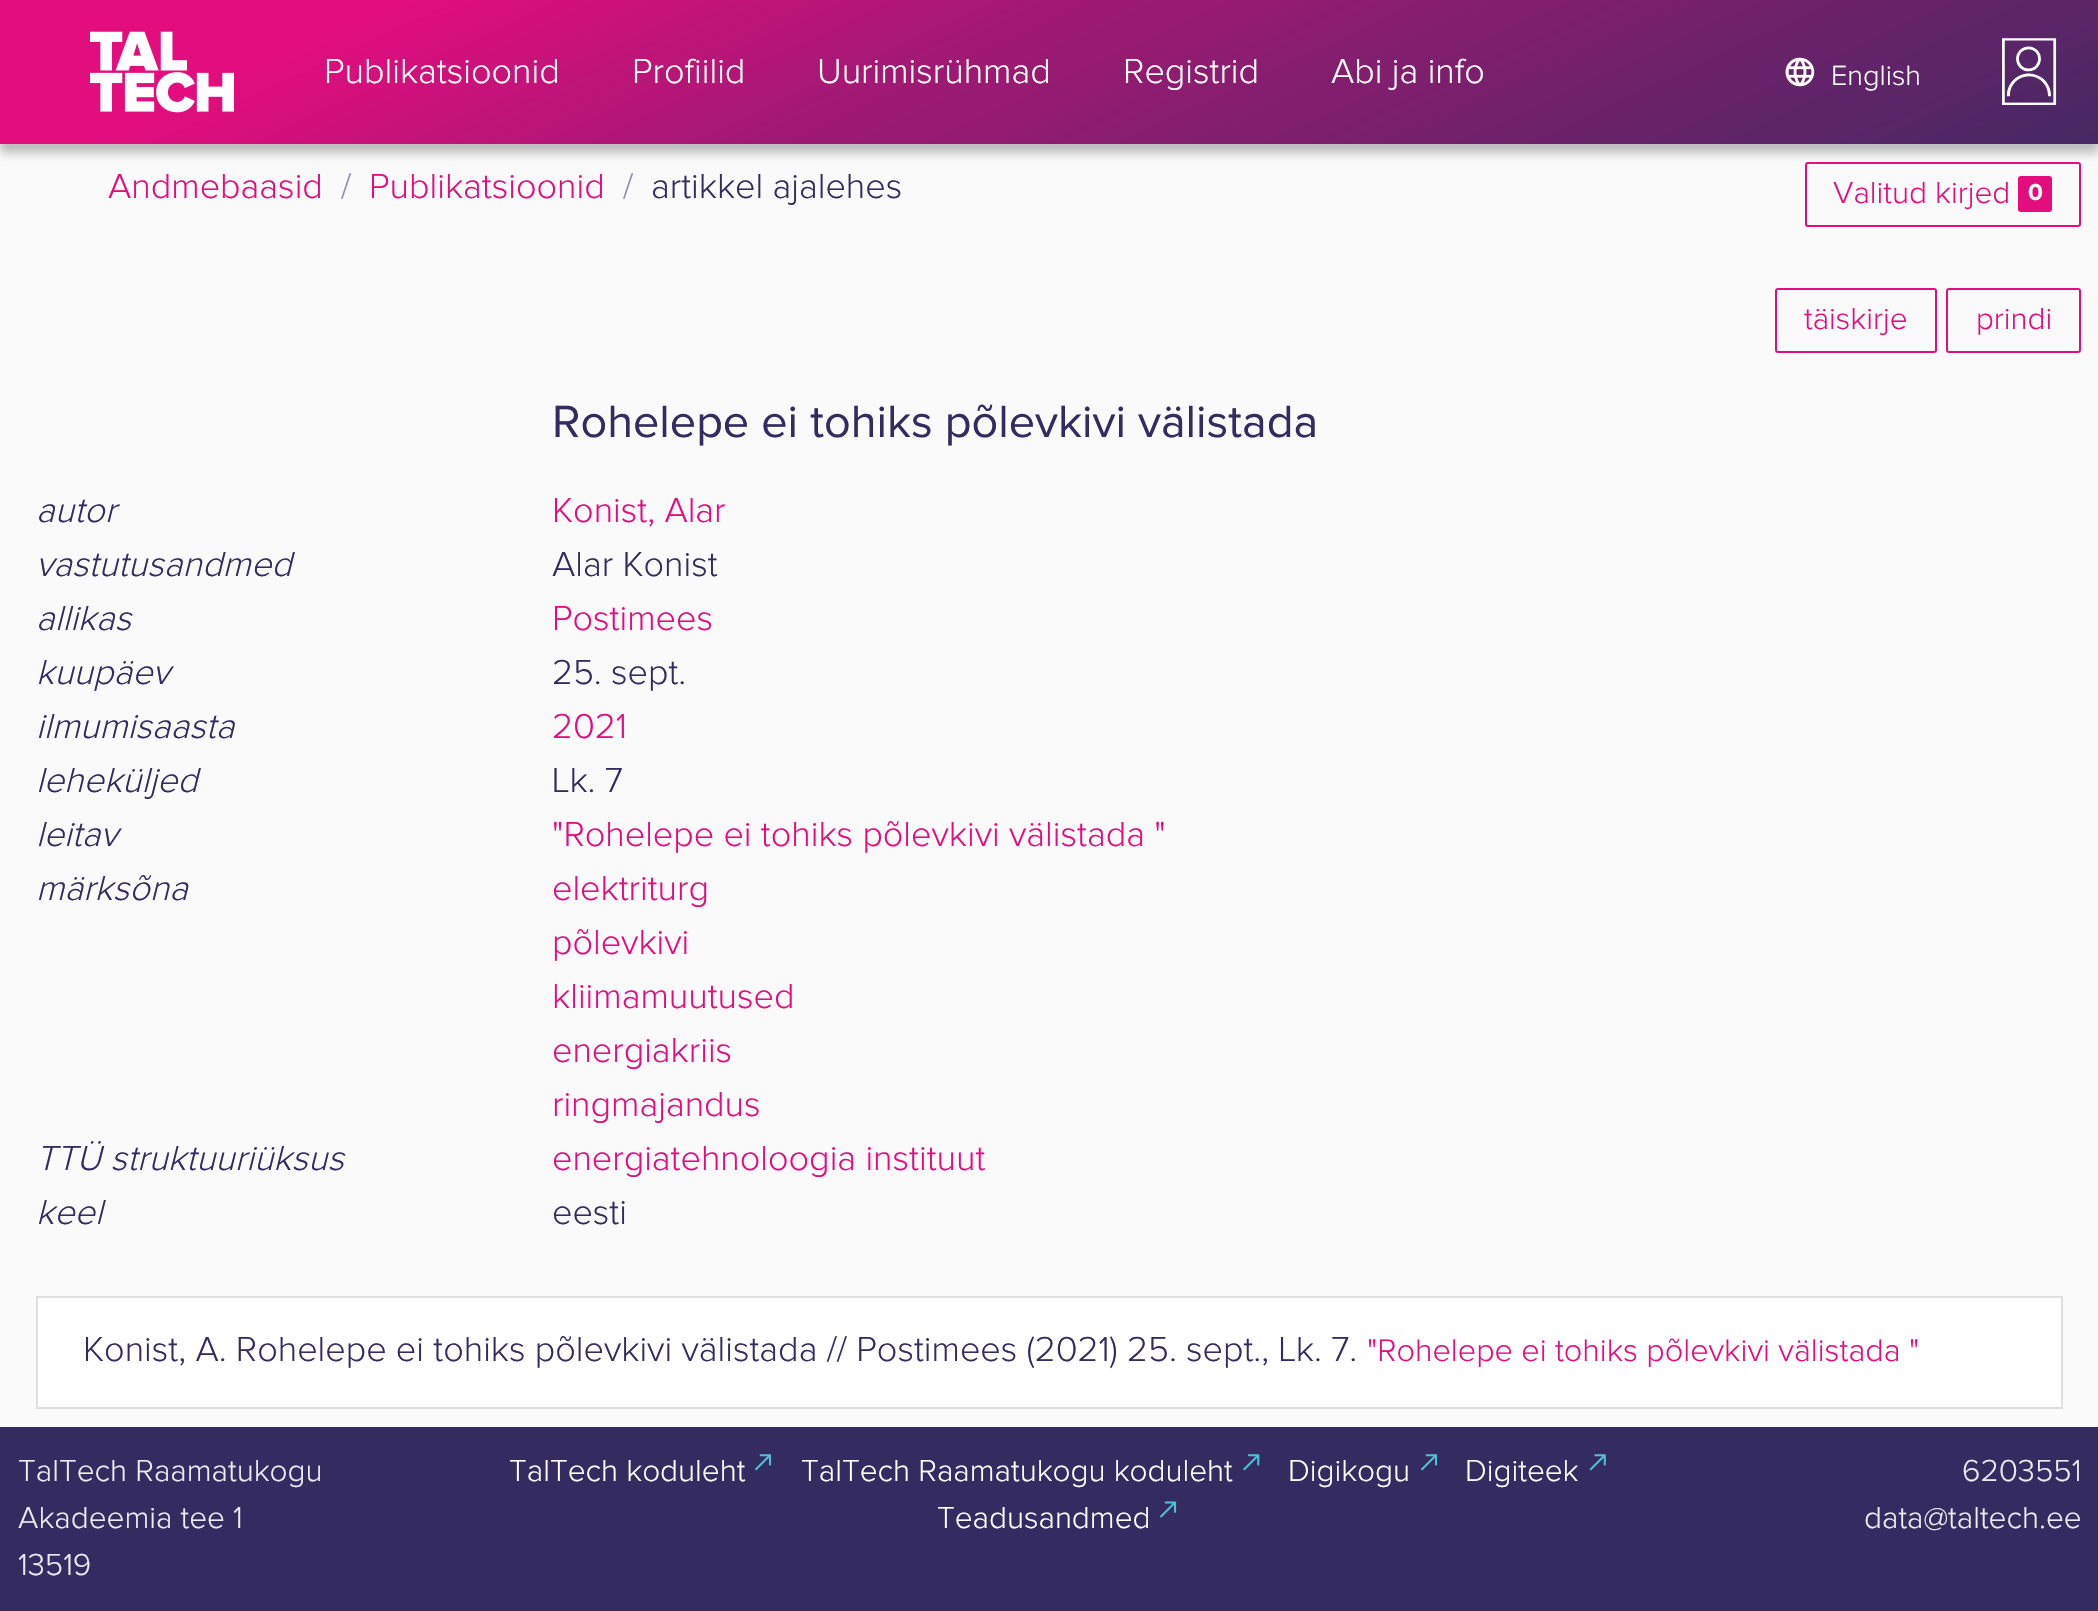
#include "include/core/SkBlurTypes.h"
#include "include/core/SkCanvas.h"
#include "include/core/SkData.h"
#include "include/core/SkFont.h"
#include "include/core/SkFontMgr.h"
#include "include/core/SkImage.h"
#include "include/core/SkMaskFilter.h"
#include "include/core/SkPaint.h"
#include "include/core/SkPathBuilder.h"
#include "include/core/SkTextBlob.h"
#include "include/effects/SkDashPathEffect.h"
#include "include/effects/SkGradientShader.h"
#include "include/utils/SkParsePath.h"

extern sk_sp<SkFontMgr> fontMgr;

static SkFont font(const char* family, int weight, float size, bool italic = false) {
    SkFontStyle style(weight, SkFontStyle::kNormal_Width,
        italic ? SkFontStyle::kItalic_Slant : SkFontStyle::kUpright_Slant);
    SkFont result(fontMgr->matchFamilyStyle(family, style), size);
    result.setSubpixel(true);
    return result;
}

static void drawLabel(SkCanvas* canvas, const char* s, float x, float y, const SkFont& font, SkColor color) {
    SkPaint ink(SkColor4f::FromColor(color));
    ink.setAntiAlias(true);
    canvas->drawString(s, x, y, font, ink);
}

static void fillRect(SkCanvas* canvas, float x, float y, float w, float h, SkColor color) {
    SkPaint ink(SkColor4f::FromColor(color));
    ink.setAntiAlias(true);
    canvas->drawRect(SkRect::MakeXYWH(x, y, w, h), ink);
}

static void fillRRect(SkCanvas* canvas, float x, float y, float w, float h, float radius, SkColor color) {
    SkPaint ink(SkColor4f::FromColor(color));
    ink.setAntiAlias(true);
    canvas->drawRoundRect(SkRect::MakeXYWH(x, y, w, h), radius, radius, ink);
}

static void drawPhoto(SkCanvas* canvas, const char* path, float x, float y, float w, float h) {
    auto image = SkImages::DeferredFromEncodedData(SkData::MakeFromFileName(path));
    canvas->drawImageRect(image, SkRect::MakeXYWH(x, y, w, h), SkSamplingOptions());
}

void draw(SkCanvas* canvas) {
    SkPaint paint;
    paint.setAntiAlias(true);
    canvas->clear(0xFFFBFAFB);
    paint.setColor(0x40000000);
    paint.setMaskFilter(SkMaskFilter::MakeBlur(kNormal_SkBlurStyle, 4.5f));
    canvas->drawRect(SkRect::MakeXYWH(0, 9, 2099, 144), paint);
    paint.setMaskFilter(nullptr);
    {
        const SkColor colors[] = {0xFFE40D7E, 0xFFA11973, 0xFF4E2765, 0xFF342C61};
        const float stops[] = {0.14f, 0.39f, 0.84f, 1};
        const SkPoint ends[] = {{835, -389}, {1321, 653}};
        paint.setShader(SkGradientShader::MakeLinear(ends, colors, stops, 4, SkTileMode::kClamp));
        paint.setAlpha(255);
    }
    canvas->drawRect(SkRect::MakeXYWH(0, 0, 2098, 144), paint);
    drawPhoto(canvas, "assets/img1.png", 90, 31, 144, 82);
    SkFont font1 = font("Proxima Nova", 300, 36);
    drawLabel(canvas, "Publikatsioonid", 324, 83, font1, 0xFFFFFFFF);
    drawLabel(canvas, "Profiilid", 632, 83, font1, 0xFFFFFFFF);
    drawLabel(canvas, "Uurimisrühmad", 817, 83, font1, 0xFFFFFFFF);
    drawLabel(canvas, "Registrid", 1123, 83, font1, 0xFFFFFFFF);
    drawLabel(canvas, "Abi ja info", 1331, 83, font1, 0xFFFFFFFF);
    drawPhoto(canvas, "assets/img2.png", 1785, 57, 30, 30);
    SkFont font2 = font("Proxima Nova", 300, 29);
    drawLabel(canvas, "English", 1831, 85, font2, 0xFFFFFFFF);
    drawPhoto(canvas, "assets/img3.png", 2002, 38, 55, 67);
    drawLabel(canvas, "Andmebaasid", 108, 198, font1, 0xFFE40D7E);
    drawLabel(canvas, "/", 341, 198, font1, 0xFF9092AD);
    drawLabel(canvas, "Publikatsioonid", 369, 198, font1, 0xFFE40D7E);
    drawLabel(canvas, "/", 623, 198, font1, 0xFF9092AD);
    drawLabel(canvas, "artikkel ajalehes", 651, 198, font1, 0xFF342C61);
    paint.setStroke(true);
    paint.setStrokeWidth(2);
    paint.setShader(nullptr);
    paint.setColor(0xFFE40D7E);
    canvas->drawRoundRect(SkRect::MakeXYWH(1806, 163, 274, 63), 2, 2, paint);
    SkFont font3 = font("Proxima Nova", 300, 31.5f);
    drawLabel(canvas, "Valitud kirjed", 1833, 203, font3, 0xFFE40D7E);
    fillRRect(canvas, 2018, 176, 34, 36, 3, 0xFFE40D7E);
    SkFont font4 = font("Proxima Nova", 700, 24);
    drawLabel(canvas, "0", 2028, 200, font4, 0xFFFFFFFF);
    canvas->drawRoundRect(SkRect::MakeXYWH(1776, 289, 160, 63), 2, 2, paint);
    drawLabel(canvas, "täiskirje", 1804, 329, font3, 0xFFE40D7E);
    canvas->drawRoundRect(SkRect::MakeXYWH(1947, 289, 133, 63), 2, 2, paint);
    drawLabel(canvas, "prindi", 1976, 329, font3, 0xFFE40D7E);
    SkFont font5 = font("Proxima Nova", 400, 46.75f);
    drawLabel(canvas, "Rohelepe ei tohiks põlevkivi välistada", 552, 437, font5, 0xFF342C61);
    SkFont font6 = font("Proxima Nova", 300, 36, true);
    drawLabel(canvas, "autor", 36, 522, font6, 0xFF342C61);
    drawLabel(canvas, "Konist, Alar", 552, 522, font1, 0xFFE40D7E);
    drawLabel(canvas, "vastutusandmed", 36, 576, font6, 0xFF342C61);
    drawLabel(canvas, "Alar Konist", 552, 576, font1, 0xFF342C61);
    drawLabel(canvas, "allikas", 36, 630, font6, 0xFF342C61);
    drawLabel(canvas, "Postimees", 552, 630, font1, 0xFFE40D7E);
    drawLabel(canvas, "kuupäev", 36, 684, font6, 0xFF342C61);
    drawLabel(canvas, "25. sept.", 552, 684, font1, 0xFF342C61);
    drawLabel(canvas, "ilmumisaasta", 36, 738, font6, 0xFF342C61);
    drawLabel(canvas, "2021", 552, 738, font1, 0xFFE40D7E);
    drawLabel(canvas, "leheküljed", 36, 792, font6, 0xFF342C61);
    drawLabel(canvas, "Lk. 7", 552, 792, font1, 0xFF342C61);
    drawLabel(canvas, "leitav", 36, 846, font6, 0xFF342C61);
    drawLabel(canvas, "\"Rohelepe ei tohiks põlevkivi välistada \"", 552, 846, font1, 0xFFE40D7E);
    drawLabel(canvas, "märksõna", 36, 900, font6, 0xFF342C61);
    drawLabel(canvas, "elektriturg", 552, 900, font1, 0xFFE40D7E);
    drawLabel(canvas, "põlevkivi", 552, 954, font1, 0xFFE40D7E);
    drawLabel(canvas, "kliimamuutused", 552, 1008, font1, 0xFFE40D7E);
    drawLabel(canvas, "energiakriis", 552, 1062, font1, 0xFFE40D7E);
    drawLabel(canvas, "ringmajandus", 552, 1116, font1, 0xFFE40D7E);
    drawLabel(canvas, "TTÜ struktuuriüksus", 36, 1170, font6, 0xFF342C61);
    drawLabel(canvas, "energiatehnoloogia instituut", 552, 1170, font1, 0xFFE40D7E);
    drawLabel(canvas, "keel", 36, 1224, font6, 0xFF342C61);
    drawLabel(canvas, "eesti", 552, 1224, font1, 0xFF342C61);
    paint.setStroke(false);
    paint.setColor(0xFFFFFFFF);
    canvas->drawRect(SkRect::MakeXYWH(37, 1297, 2025, 111), paint);
    paint.setStroke(true);
    paint.setColor(0xFFDFDFDF);
    canvas->drawRect(SkRect::MakeXYWH(37, 1297, 2025, 111), paint);
    drawLabel(canvas, "Konist, A. Rohelepe ei tohiks põlevkivi välistada // Postimees (2021) 25. sept., Lk. 7.", 83, 1361, font1, 0xFF342C61);
    SkFont font7 = font("Proxima Nova", 300, 32.4f);
    drawLabel(canvas, "\"Rohelepe ei tohiks põlevkivi välistada \"", 1367, 1361, font7, 0xFFE40D7E);
    fillRect(canvas, 0, 1427, 2098, 184, 0xFF342C61);
    drawLabel(canvas, "TalTech Raamatukogu", 18, 1481, font3, 0xFFECECF1);
    drawLabel(canvas, "Akadeemia tee 1", 18, 1528, font3, 0xFFECECF1);
    drawLabel(canvas, "13519", 18, 1575, font3, 0xFFECECF1);
    drawLabel(canvas, "TalTech koduleht", 509, 1481, font3, 0xFFFFFFFF);
    drawPhoto(canvas, "assets/img4.png", 754, 1454, 18, 17);
    drawLabel(canvas, "TalTech Raamatukogu koduleht", 801, 1481, font3, 0xFFFFFFFF);
    drawPhoto(canvas, "assets/img5.png", 1243, 1454, 17, 17);
    drawLabel(canvas, "Digikogu", 1288, 1481, font3, 0xFFFFFFFF);
    drawPhoto(canvas, "assets/img4.png", 1420, 1454, 18, 17);
    drawLabel(canvas, "Digiteek", 1465, 1481, font3, 0xFFFFFFFF);
    drawPhoto(canvas, "assets/img6.png", 1589, 1454, 17, 17);
    drawLabel(canvas, "Teadusandmed", 937, 1528, font3, 0xFFFFFFFF);
    drawPhoto(canvas, "assets/img7.png", 1159, 1501, 18, 17);
    drawLabel(canvas, "6203551", 1962, 1481, font3, 0xFFECECF1);
    drawLabel(canvas, "data@taltech.ee", 1864, 1528, font3, 0xFFECECF1);
}
